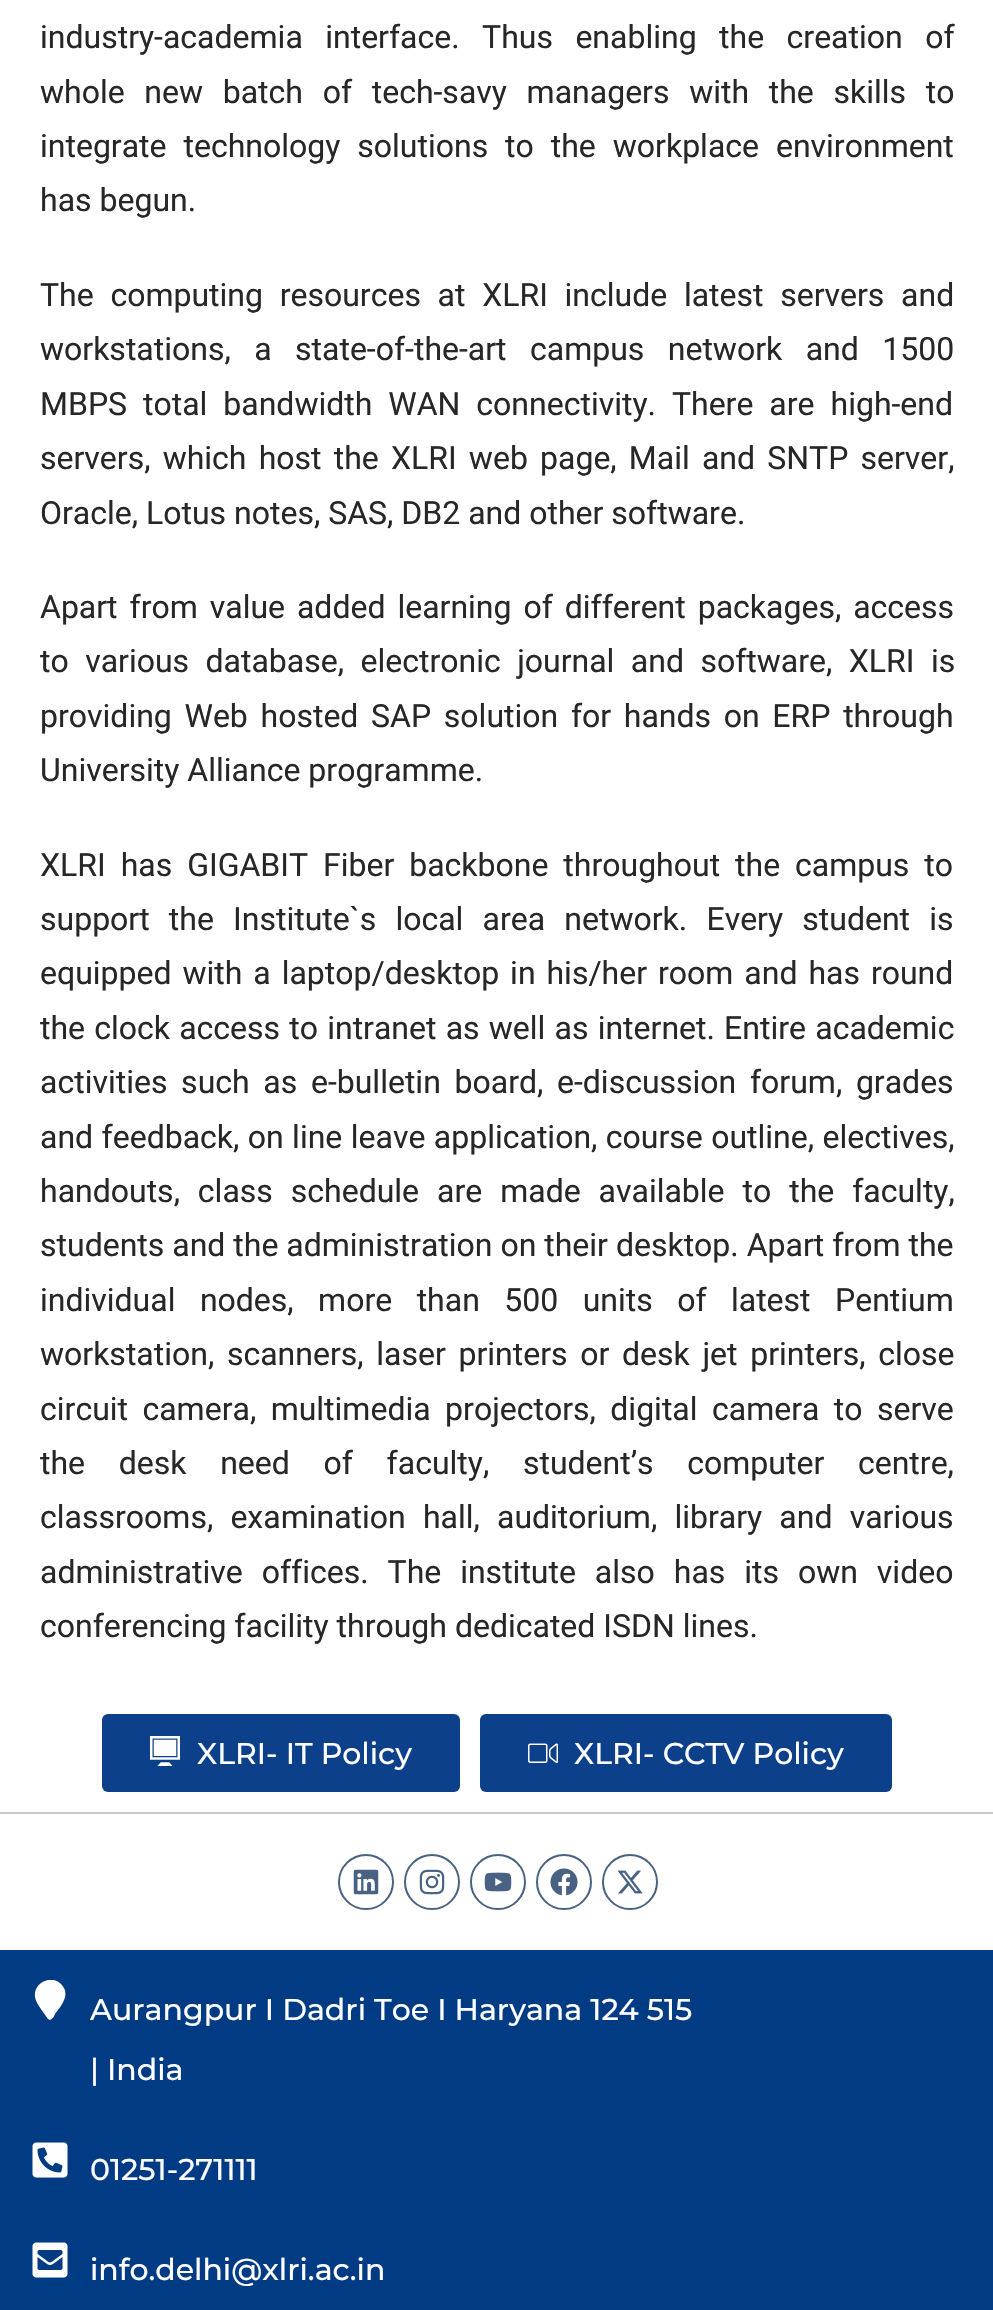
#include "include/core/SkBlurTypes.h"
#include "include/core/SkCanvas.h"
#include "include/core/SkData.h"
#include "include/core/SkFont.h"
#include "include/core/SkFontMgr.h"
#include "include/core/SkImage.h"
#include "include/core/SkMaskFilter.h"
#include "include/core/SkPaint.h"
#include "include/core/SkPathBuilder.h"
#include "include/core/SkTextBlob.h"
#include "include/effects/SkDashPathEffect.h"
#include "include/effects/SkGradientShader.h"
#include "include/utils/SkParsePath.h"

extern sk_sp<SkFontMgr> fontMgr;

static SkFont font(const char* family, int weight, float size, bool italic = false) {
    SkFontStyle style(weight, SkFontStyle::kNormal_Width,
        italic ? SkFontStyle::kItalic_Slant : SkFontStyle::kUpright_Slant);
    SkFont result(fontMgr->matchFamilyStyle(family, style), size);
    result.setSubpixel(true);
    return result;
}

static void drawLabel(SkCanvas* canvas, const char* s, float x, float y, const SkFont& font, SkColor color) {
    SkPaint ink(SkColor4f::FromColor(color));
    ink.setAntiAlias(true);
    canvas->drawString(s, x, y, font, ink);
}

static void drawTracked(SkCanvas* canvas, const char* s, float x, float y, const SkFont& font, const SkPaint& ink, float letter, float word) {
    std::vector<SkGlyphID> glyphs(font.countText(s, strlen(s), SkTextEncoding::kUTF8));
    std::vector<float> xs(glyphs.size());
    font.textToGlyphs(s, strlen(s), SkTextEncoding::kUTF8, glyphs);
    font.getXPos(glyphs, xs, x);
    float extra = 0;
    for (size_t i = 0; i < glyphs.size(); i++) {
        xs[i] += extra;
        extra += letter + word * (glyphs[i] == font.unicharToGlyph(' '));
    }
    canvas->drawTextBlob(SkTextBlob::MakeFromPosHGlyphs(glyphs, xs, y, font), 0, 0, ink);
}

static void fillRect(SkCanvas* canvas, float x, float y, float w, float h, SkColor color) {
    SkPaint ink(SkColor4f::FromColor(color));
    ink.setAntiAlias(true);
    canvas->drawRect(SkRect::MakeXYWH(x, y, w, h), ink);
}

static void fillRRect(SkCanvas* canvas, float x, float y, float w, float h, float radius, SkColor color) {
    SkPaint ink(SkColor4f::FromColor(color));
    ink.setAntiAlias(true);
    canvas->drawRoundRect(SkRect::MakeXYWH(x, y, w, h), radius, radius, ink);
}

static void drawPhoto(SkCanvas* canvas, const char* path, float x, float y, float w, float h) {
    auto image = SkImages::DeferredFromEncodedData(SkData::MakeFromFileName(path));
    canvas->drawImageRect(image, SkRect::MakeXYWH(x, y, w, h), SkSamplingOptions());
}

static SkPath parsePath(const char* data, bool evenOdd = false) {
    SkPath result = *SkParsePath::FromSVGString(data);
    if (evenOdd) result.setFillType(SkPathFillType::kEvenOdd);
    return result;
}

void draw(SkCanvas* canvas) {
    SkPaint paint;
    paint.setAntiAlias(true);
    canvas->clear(0xFFFFFFFF);
    SkFont font1 = font("Roboto", 400, 32);
    paint.setColor(0xFF272727);
    drawTracked(canvas, "industry-academia interface. Thus enabling the creation of", 40, 48, font1, paint, 0, 14.5f);
    drawTracked(canvas, "whole new batch of tech-savy managers with the skills to", 40, 103, font1, paint, 0, 11.75f);
    drawTracked(canvas, "integrate technology solutions to the workplace environment", 40, 157, font1, paint, 0, 9);
    drawLabel(canvas, "has begun.", 40, 211, font1, 0xFF272727);
    drawTracked(canvas, "The computing resources at XLRI include latest servers and", 40, 306, font1, paint, 0, 8.75f);
    drawTracked(canvas, "workstations, a state-of-the-art campus network and 1500", 40, 360, font1, paint, 0, 15.5f);
    drawTracked(canvas, "MBPS total bandwidth WAN connectivity. There are high-end", 40, 415, font1, paint, 0, 8);
    drawTracked(canvas, "servers, which host the XLRI web page, Mail and SNTP server,", 40, 469, font1, paint, 0, 4.25f);
    drawLabel(canvas, "Oracle, Lotus notes, SAS, DB2 and other software.", 40, 524, font1, 0xFF272727);
    drawTracked(canvas, "Apart from value added learning of different packages, access", 40, 618, font1, paint, 0, 4);
    drawTracked(canvas, "to various database, electronic journal and software, XLRI is", 40, 672, font1, paint, 0, 8.5f);
    drawTracked(canvas, "providing Web hosted SAP solution for hands on ERP through", 40, 727, font1, paint, 0, 4.75f);
    drawLabel(canvas, "University Alliance programme.", 40, 781, font1, 0xFF272727);
    drawTracked(canvas, "XLRI has GIGABIT Fiber backbone throughout the campus to", 40, 876, font1, paint, 0, 7);
    drawTracked(canvas, "support the Institute`s local area network. Every student is", 40, 930, font1, paint, 0, 11.25f);
    drawTracked(canvas, "equipped with a laptop/desktop in his/her room and has round", 40, 984, font1, paint, 0, 3);
    drawTracked(canvas, "the clock access to intranet as well as internet. Entire academic", 40, 1039, font1, paint, 0, 1.25f);
    drawTracked(canvas, "activities such as e-bulletin board, e-discussion forum, grades", 40, 1093, font1, paint, 0, 5.75f);
    drawTracked(canvas, "and feedback, on line leave application, course outline, electives,", 40, 1148, font1, paint, 0, 0.5f);
    drawTracked(canvas, "handouts, class schedule are made available to the faculty,", 40, 1202, font1, paint, 0, 10);
    drawLabel(canvas, "students and the administration on their desktop. Apart from the", 40, 1256, font1, 0xFF272727);
    drawTracked(canvas, "individual nodes, more than 500 units of latest Pentium", 40, 1311, font1, paint, 0, 16.5f);
    drawTracked(canvas, "workstation, scanners, laser printers or desk jet printers, close", 40, 1365, font1, paint, 0, 4.75f);
    drawTracked(canvas, "circuit camera, multimedia projectors, digital camera to serve", 40, 1420, font1, paint, 0, 6.5f);
    drawTracked(canvas, "the desk need of faculty, student’s computer centre,", 40, 1474, font1, paint, 0, 25.75f);
    drawTracked(canvas, "classrooms, examination hall, auditorium, library and various", 40, 1528, font1, paint, 0, 9.25f);
    drawTracked(canvas, "administrative offices. The institute also has its own video", 40, 1583, font1, paint, 0, 11);
    drawLabel(canvas, "conferencing facility through dedicated ISDN lines.", 40, 1637, font1, 0xFF272727);
    fillRRect(canvas, 102, 1714, 358, 78, 6, 0xFF0D408A);
    drawPhoto(canvas, "assets/img1.png", 150, 1736, 30, 30);
    SkFont font2 = font("Montserrat", 500, 30);
    drawLabel(canvas, "XLRI- IT Policy", 197, 1764, font2, 0xFFFFFFFF);
    fillRRect(canvas, 480, 1714, 412, 78, 6, 0xFF0D408A);
    drawPhoto(canvas, "assets/img2.png", 528, 1743, 30, 21);
    drawLabel(canvas, "XLRI- CCTV Policy", 574, 1764, font2, 0xFFFFFFFF);
    fillRect(canvas, 0, 1812, 993, 2, 0xFFC9C9C9);
    paint.setStroke(true);
    paint.setStrokeWidth(2);
    paint.setColor(0xFF496183);
    canvas->drawCircle(366, 1882, 27, paint);
    drawPhoto(canvas, "assets/img3.png", 353, 1869, 26, 26);
    canvas->drawCircle(432, 1882, 27, paint);
    drawPhoto(canvas, "assets/img4.png", 419, 1869, 26, 26);
    canvas->drawCircle(498, 1882, 27, paint);
    drawPhoto(canvas, "assets/img5.png", 484, 1872, 28, 20);
    canvas->drawCircle(564, 1882, 27, paint);
    drawPhoto(canvas, "assets/img6.png", 550, 1868, 28, 28);
    canvas->drawCircle(630, 1882, 27, paint);
    drawPhoto(canvas, "assets/img7.png", 617, 1870, 26, 24);
    fillRect(canvas, 0, 1950, 993, 360, 0xFF013B83);
    canvas->save();
    canvas->clipRect(SkRect::MakeXYWH(30, 1980, 40, 40));
    paint.setStroke(false);
    paint.setColor(0xFFFFFFFF);
    canvas->drawPath(parsePath("M48 2019C45 2014 36 2004 35 1997C33 1983 51 1974 61 1984C71 1994 62 2005 55 2014C54 2016 53 2019 50 2020Z"), paint);
    canvas->restore();
    drawLabel(canvas, "Aurangpur I Dadri Toe I Haryana 124 515", 90, 2020, font2, 0xFFFFFFFF);
    drawLabel(canvas, "| India", 90, 2080, font2, 0xFFFFFFFF);
    drawPhoto(canvas, "assets/img8.png", 32, 2142, 36, 36);
    drawLabel(canvas, "01251-271111", 90, 2180, font2, 0xFFFFFFFF);
    drawPhoto(canvas, "assets/img9.png", 32, 2242, 36, 36);
    drawLabel(canvas, "info.delhi@xlri.ac.in", 90, 2280, font2, 0xFFFFFFFF);
}
